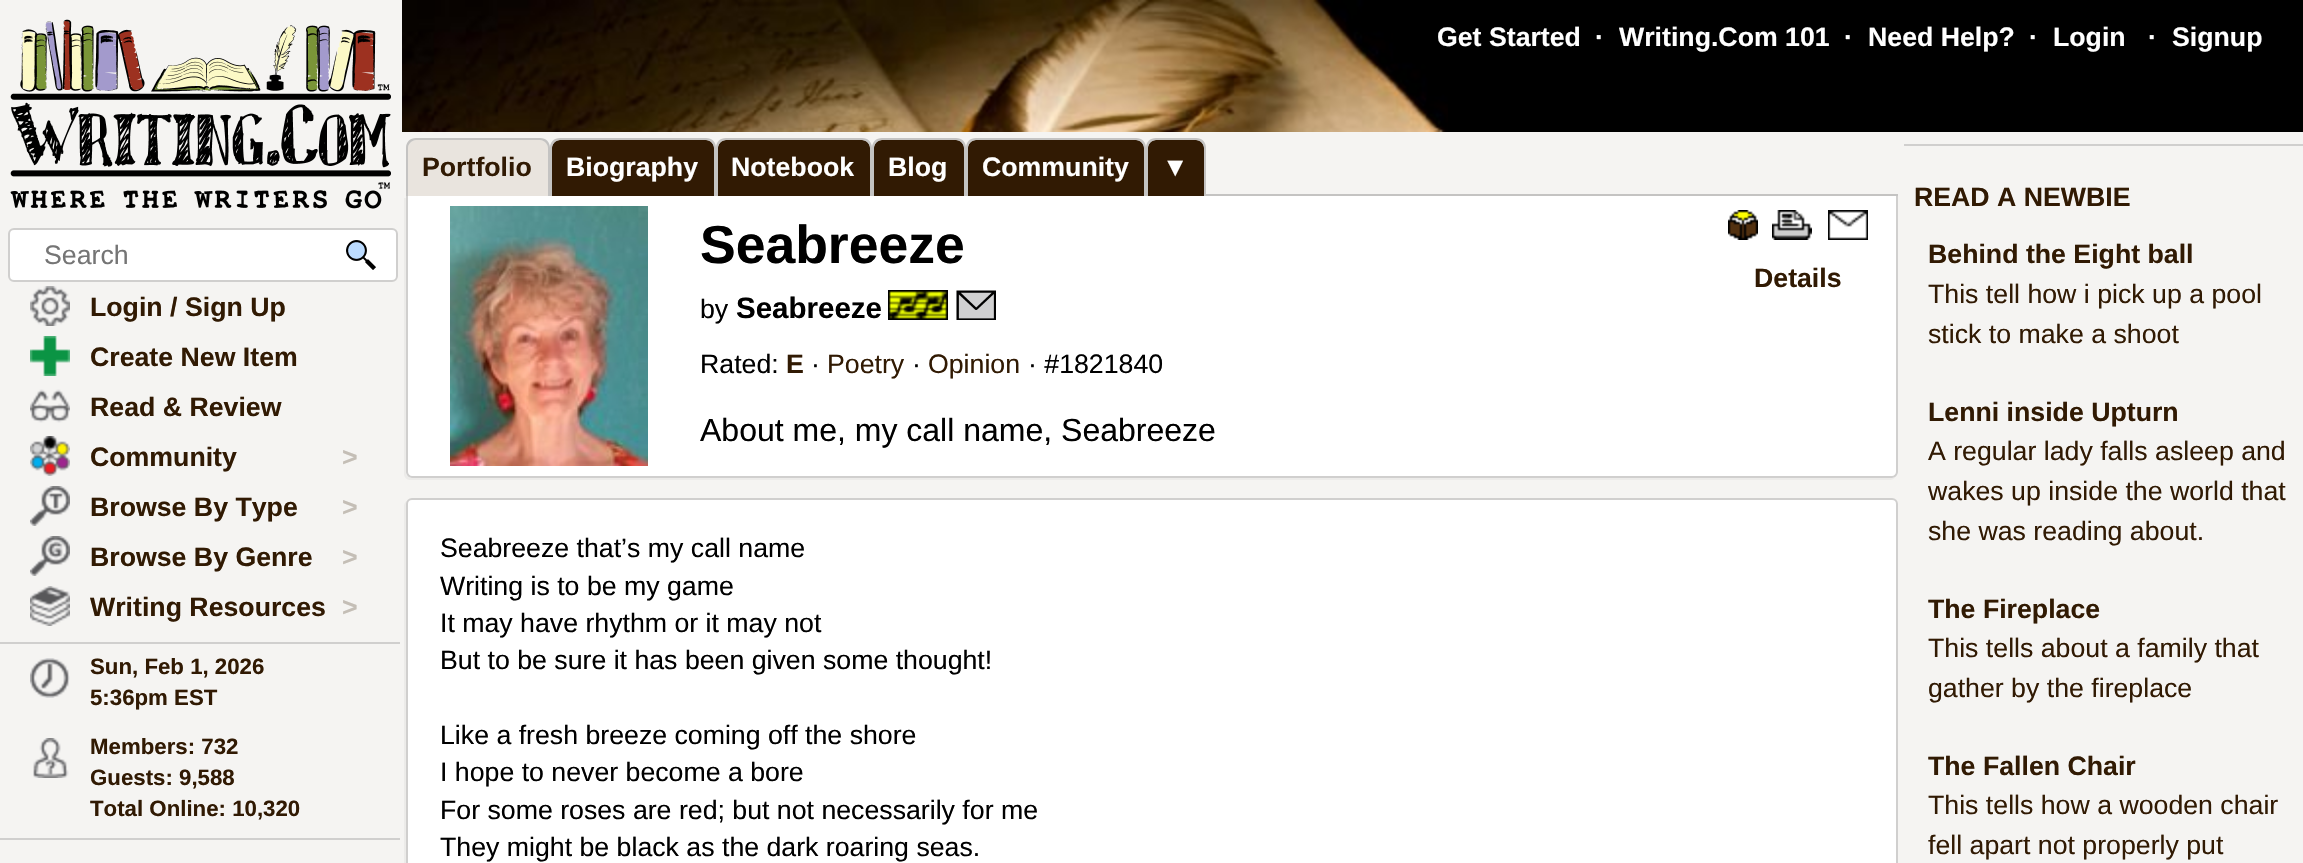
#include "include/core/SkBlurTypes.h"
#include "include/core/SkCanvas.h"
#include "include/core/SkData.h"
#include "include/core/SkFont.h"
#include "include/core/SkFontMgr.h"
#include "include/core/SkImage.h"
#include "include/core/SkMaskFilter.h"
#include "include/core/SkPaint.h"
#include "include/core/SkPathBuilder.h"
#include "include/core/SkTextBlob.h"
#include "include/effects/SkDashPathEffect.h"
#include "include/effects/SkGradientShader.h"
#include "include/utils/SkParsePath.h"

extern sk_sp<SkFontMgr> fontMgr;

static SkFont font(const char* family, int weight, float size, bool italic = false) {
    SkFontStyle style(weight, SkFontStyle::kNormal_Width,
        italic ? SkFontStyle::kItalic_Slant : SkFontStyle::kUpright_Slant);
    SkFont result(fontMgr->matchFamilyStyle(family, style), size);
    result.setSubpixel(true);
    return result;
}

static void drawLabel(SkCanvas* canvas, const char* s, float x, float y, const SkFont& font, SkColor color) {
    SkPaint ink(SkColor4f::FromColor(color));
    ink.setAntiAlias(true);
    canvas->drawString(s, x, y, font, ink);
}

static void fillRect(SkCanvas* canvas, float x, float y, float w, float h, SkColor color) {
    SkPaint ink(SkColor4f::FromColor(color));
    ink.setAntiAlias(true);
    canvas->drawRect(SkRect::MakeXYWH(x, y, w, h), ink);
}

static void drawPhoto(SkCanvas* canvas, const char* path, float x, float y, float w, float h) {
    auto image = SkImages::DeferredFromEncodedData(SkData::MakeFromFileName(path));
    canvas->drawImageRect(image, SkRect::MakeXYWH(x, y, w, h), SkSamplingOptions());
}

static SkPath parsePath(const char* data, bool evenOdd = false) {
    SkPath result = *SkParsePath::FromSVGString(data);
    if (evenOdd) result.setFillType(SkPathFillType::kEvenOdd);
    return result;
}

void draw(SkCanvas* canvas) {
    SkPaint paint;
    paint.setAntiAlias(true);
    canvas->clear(0xFFF5F4F2);
    fillRect(canvas, 1448, 0, 855, 132, 0xFF000000);
    drawPhoto(canvas, "assets/img1.png", 402, 0, 1046, 132);
    SkFont font1 = font("Liberation Sans", 700, 26.7f);
    drawLabel(canvas, "Get Started", 1437, 46, font1, 0xFFFFFFFF);
    drawLabel(canvas, "·", 1595, 46, font1, 0xFFFFFFFF);
    drawLabel(canvas, "Writing.Com 101", 1619, 46, font1, 0xFFFFFFFF);
    drawLabel(canvas, "·", 1844, 46, font1, 0xFFFFFFFF);
    drawLabel(canvas, "Need Help?", 1868, 46, font1, 0xFFFFFFFF);
    drawLabel(canvas, "·", 2029, 46, font1, 0xFFFFFFFF);
    drawLabel(canvas, "Login", 2053, 46, font1, 0xFFFFFFFF);
    drawLabel(canvas, "·", 2148, 46, font1, 0xFFFFFFFF);
    drawLabel(canvas, "Signup", 2172, 46, font1, 0xFFFFFFFF);
    drawPhoto(canvas, "assets/img2.png", 10, 19, 381, 190);
    paint.setColor(0xFFFFFFFF);
    canvas->drawRoundRect(SkRect::MakeXYWH(9, 229, 388, 52), 5, 5, paint);
    paint.setStroke(true);
    paint.setStrokeWidth(2);
    paint.setColor(0xFFD0CFCE);
    canvas->drawRoundRect(SkRect::MakeXYWH(9, 229, 388, 52), 5, 5, paint);
    SkFont font2 = font("Liberation Sans", 400, 26.7f);
    drawLabel(canvas, "Search", 44, 264, font2, 0xFF757575);
    drawPhoto(canvas, "assets/img3.png", 346, 240, 30, 30);
    drawPhoto(canvas, "assets/img4.png", 30, 286, 40, 40);
    drawLabel(canvas, "Login / Sign Up", 90, 316, font1, 0xFF311A03);
    drawPhoto(canvas, "assets/img5.png", 30, 336, 40, 40);
    drawLabel(canvas, "Create New Item", 90, 366, font1, 0xFF311A03);
    drawPhoto(canvas, "assets/img6.png", 30, 389, 40, 34);
    drawLabel(canvas, "Read & Review", 90, 416, font1, 0xFF311A03);
    drawPhoto(canvas, "assets/img7.png", 30, 436, 40, 40);
    drawLabel(canvas, "Community", 90, 466, font1, 0xFF311A03);
    drawLabel(canvas, ">", 342, 466, font1, 0xFFC4BEB6);
    drawPhoto(canvas, "assets/img8.png", 30, 486, 40, 40);
    drawLabel(canvas, "Browse By Type", 90, 516, font1, 0xFF311A03);
    drawLabel(canvas, ">", 342, 516, font1, 0xFFC4BEB6);
    drawPhoto(canvas, "assets/img9.png", 30, 536, 40, 40);
    drawLabel(canvas, "Browse By Genre", 90, 566, font1, 0xFF311A03);
    drawLabel(canvas, ">", 342, 566, font1, 0xFFC4BEB6);
    drawPhoto(canvas, "assets/img10.png", 30, 586, 40, 40);
    drawLabel(canvas, "Writing Resources", 90, 616, font1, 0xFF311A03);
    drawLabel(canvas, ">", 342, 616, font1, 0xFFC4BEB6);
    fillRect(canvas, 0, 642, 400, 2, 0xFFD0CFCE);
    drawPhoto(canvas, "assets/img11.png", 30, 658, 40, 40);
    SkFont font3 = font("Liberation Sans", 700, 22.25f);
    drawLabel(canvas, "Sun, Feb 1, 2026", 90, 674, font3, 0xFF311A03);
    drawLabel(canvas, "5:36pm EST", 90, 705, font3, 0xFF311A03);
    drawPhoto(canvas, "assets/img12.png", 33, 738, 36, 40);
    drawLabel(canvas, "Members: 732", 90, 754, font3, 0xFF311A03);
    drawLabel(canvas, "Guests: 9,588", 90, 785, font3, 0xFF311A03);
    drawLabel(canvas, "Total Online: 10,320", 90, 816, font3, 0xFF311A03);
    fillRect(canvas, 0, 838, 400, 2, 0xFFD0CFCE);
    paint.setStroke(false);
    paint.setColor(0xFFE9E4DE);
    canvas->drawPath(parsePath("M416 140H540C544.5 140 548 143.5 548 148V196H408V148C408 143.5 411.5 140 416 140Z"), paint);
    paint.setColor(0xFFC4C3C2);
    canvas->drawPath(parsePath("M416 138H540C546 138 550 142 550 148V196H406V148C406 142 410 138 416 138ZM416 140H540C544 140 548 144 548 148V196H408V148C408 144 412 140 416 140Z", true), paint);
    drawLabel(canvas, "Portfolio", 422, 176, font1, 0xFF311A03);
    paint.setColor(0xFF311A03);
    canvas->drawPath(parsePath("M560 140H706C710.5 140 714 143.5 714 148V196H552V148C552 143.5 555.5 140 560 140Z"), paint);
    paint.setColor(0xFFC4C3C2);
    canvas->drawPath(parsePath("M560 138H706C712 138 716 142 716 148V196H550V148C550 142 554 138 560 138ZM560 140H706C710 140 714 144 714 148V196H552V148C552 144 556 140 560 140Z", true), paint);
    drawLabel(canvas, "Biography", 566, 176, font1, 0xFFFFFFFF);
    paint.setColor(0xFF311A03);
    canvas->drawPath(parsePath("M726 140H862C866.5 140 870 143.5 870 148V196H718V148C718 143.5 721.5 140 726 140Z"), paint);
    paint.setColor(0xFFC4C3C2);
    canvas->drawPath(parsePath("M726 138H862C868 138 872 142 872 148V196H716V148C716 142 720 138 726 138ZM726 140H862C866 140 870 144 870 148V196H718V148C718 144 722 140 726 140Z", true), paint);
    drawLabel(canvas, "Notebook", 731, 176, font1, 0xFFFFFFFF);
    paint.setColor(0xFF311A03);
    canvas->drawPath(parsePath("M882 140H956C960.5 140 964 143.5 964 148V196H874V148C874 143.5 877.5 140 882 140Z"), paint);
    paint.setColor(0xFFC4C3C2);
    canvas->drawPath(parsePath("M882 138H956C962 138 966 142 966 148V196H872V148C872 142 876 138 882 138ZM882 140H956C960 140 964 144 964 148V196H874V148C874 144 878 140 882 140Z", true), paint);
    drawLabel(canvas, "Blog", 888, 176, font1, 0xFFFFFFFF);
    paint.setColor(0xFF311A03);
    canvas->drawPath(parsePath("M976 140H1136C1140.5 140 1144 143.5 1144 148V196H968V148C968 143.5 971.5 140 976 140Z"), paint);
    paint.setColor(0xFFC4C3C2);
    canvas->drawPath(parsePath("M976 138H1136C1142 138 1146 142 1146 148V196H966V148C966 142 970 138 976 138ZM976 140H1136C1140 140 1144 144 1144 148V196H968V148C968 144 972 140 976 140Z", true), paint);
    drawLabel(canvas, "Community", 982, 176, font1, 0xFFFFFFFF);
    paint.setColor(0xFF311A03);
    canvas->drawPath(parsePath("M1156 140H1196C1200.5 140 1204 143.5 1204 148V196H1148V148C1148 143.5 1151.5 140 1156 140Z"), paint);
    paint.setColor(0xFFC4C3C2);
    canvas->drawPath(parsePath("M1156 138H1196C1202 138 1206 142 1206 148V196H1146V148C1146 142 1150 138 1156 138ZM1156 140H1196C1200 140 1204 144 1204 148V196H1148V148C1148 144 1152 140 1156 140Z", true), paint);
    drawLabel(canvas, "▼", 1162, 176, font1, 0xFFFFFFFF);
    fillRect(canvas, 1206, 194, 692, 2, 0xFFC4C3C2);
    paint.setColor(0xFFECEBE9);
    canvas->drawPath(parsePath("M404 198V474C404 477 407 480 410 480H1890C1892 480 1894 479 1895 477L1892 478H412C409 478 406 475 406 472V198Z"), paint);
    paint.setColor(0xFFFFFFFF);
    canvas->drawPath(parsePath("M406 196H1898V472C1898 475.5 1895.5 478 1892 478H412C408.5 478 406 475.5 406 472Z"), paint);
    paint.setColor(0xFFD0CFCE);
    canvas->drawPath(parsePath("M406 196H1898V472C1898 475 1895 478 1892 478H412C409 478 406 475 406 472ZM408 196H1896V472C1896 474 1894 476 1892 476H412C410 476 408 474 408 472Z", true), paint);
    drawPhoto(canvas, "assets/img13.png", 450, 206, 198, 260);
    SkFont font4 = font("Liberation Sans", 700, 53.5f);
    drawLabel(canvas, "Seabreeze", 700, 263, font4, 0xFF000000);
    drawPhoto(canvas, "assets/img14.png", 1728, 210, 30, 30);
    drawPhoto(canvas, "assets/img15.png", 1772, 210, 40, 30);
    drawPhoto(canvas, "assets/img16.png", 1828, 210, 40, 30);
    drawLabel(canvas, "Details", 1754, 287, font1, 0xFF311A03);
    drawLabel(canvas, "by", 700, 318, font2, 0xFF000000);
    SkFont font5 = font("Liberation Sans", 700, 29.5f);
    drawLabel(canvas, "Seabreeze", 736, 318, font5, 0xFF000000);
    drawPhoto(canvas, "assets/img17.png", 888, 290, 60, 30);
    drawPhoto(canvas, "assets/img18.png", 956, 290, 40, 30);
    drawLabel(canvas, "Rated:", 700, 373, font2, 0xFF000000);
    drawLabel(canvas, "E", 786, 373, font1, 0xFF311A03);
    drawLabel(canvas, "·", 811, 373, font2, 0xFF000000);
    drawLabel(canvas, "Poetry", 827, 373, font2, 0xFF311A03);
    drawLabel(canvas, "·", 912, 373, font2, 0xFF000000);
    drawLabel(canvas, "Opinion", 928, 373, font2, 0xFF311A03);
    drawLabel(canvas, "· #1821840", 1028, 373, font2, 0xFF000000);
    SkFont font6 = font("Liberation Sans", 400, 32);
    drawLabel(canvas, "About me, my call name, Seabreeze", 700, 441, font6, 0xFF000000);
    paint.setColor(0xFFECEBE9);
    canvas->drawPath(parsePath("M407 501C405 502 404 504 404 506V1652C404 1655 407 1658 410 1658H1890C1892 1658 1894 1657 1895 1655L1892 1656H412C409 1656 406 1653 406 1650V504Z"), paint);
    paint.setColor(0xFFFFFFFF);
    canvas->drawRoundRect(SkRect::MakeXYWH(407, 499, 1490, 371), 5, 5, paint);
    paint.setStroke(true);
    paint.setColor(0xFFD0CFCE);
    canvas->drawRoundRect(SkRect::MakeXYWH(407, 499, 1490, 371), 5, 5, paint);
    drawLabel(canvas, "Seabreeze that’s my call name", 440, 557, font2, 0xFF000000);
    drawLabel(canvas, "Writing is to be my game", 440, 595, font2, 0xFF000000);
    drawLabel(canvas, "It may have rhythm or it may not", 440, 632, font2, 0xFF000000);
    drawLabel(canvas, "But to be sure it has been given some thought!", 440, 669, font2, 0xFF000000);
    drawLabel(canvas, "Like a fresh breeze coming off the shore", 440, 744, font2, 0xFF000000);
    drawLabel(canvas, "I hope to never become a bore", 440, 781, font2, 0xFF000000);
    drawLabel(canvas, "For some roses are red; but not necessarily for me", 440, 819, font2, 0xFF000000);
    drawLabel(canvas, "They might be black as the dark roaring seas.", 440, 856, font2, 0xFF000000);
    fillRect(canvas, 1904, 144, 399, 2, 0xFFD0CFCE);
    drawLabel(canvas, "READ A NEWBIE", 1914, 206, font1, 0xFF311A03);
    drawLabel(canvas, "Behind the Eight ball", 1928, 263, font1, 0xFF311A03);
    drawLabel(canvas, "This tell how i pick up a pool", 1928, 303, font2, 0xFF311A03);
    drawLabel(canvas, "stick to make a shoot", 1928, 343, font2, 0xFF311A03);
    drawLabel(canvas, "Lenni inside Upturn", 1928, 421, font1, 0xFF311A03);
    drawLabel(canvas, "A regular lady falls asleep and", 1928, 460, font2, 0xFF311A03);
    drawLabel(canvas, "wakes up inside the world that", 1928, 500, font2, 0xFF311A03);
    drawLabel(canvas, "she was reading about.", 1928, 540, font2, 0xFF311A03);
    drawLabel(canvas, "The Fireplace", 1928, 618, font1, 0xFF311A03);
    drawLabel(canvas, "This tells about a family that", 1928, 657, font2, 0xFF311A03);
    drawLabel(canvas, "gather by the fireplace", 1928, 697, font2, 0xFF311A03);
    drawLabel(canvas, "The Fallen Chair", 1928, 775, font1, 0xFF311A03);
    drawLabel(canvas, "This tells how a wooden chair", 1928, 814, font2, 0xFF311A03);
    drawLabel(canvas, "fell apart not properly put", 1928, 854, font2, 0xFF311A03);
}
